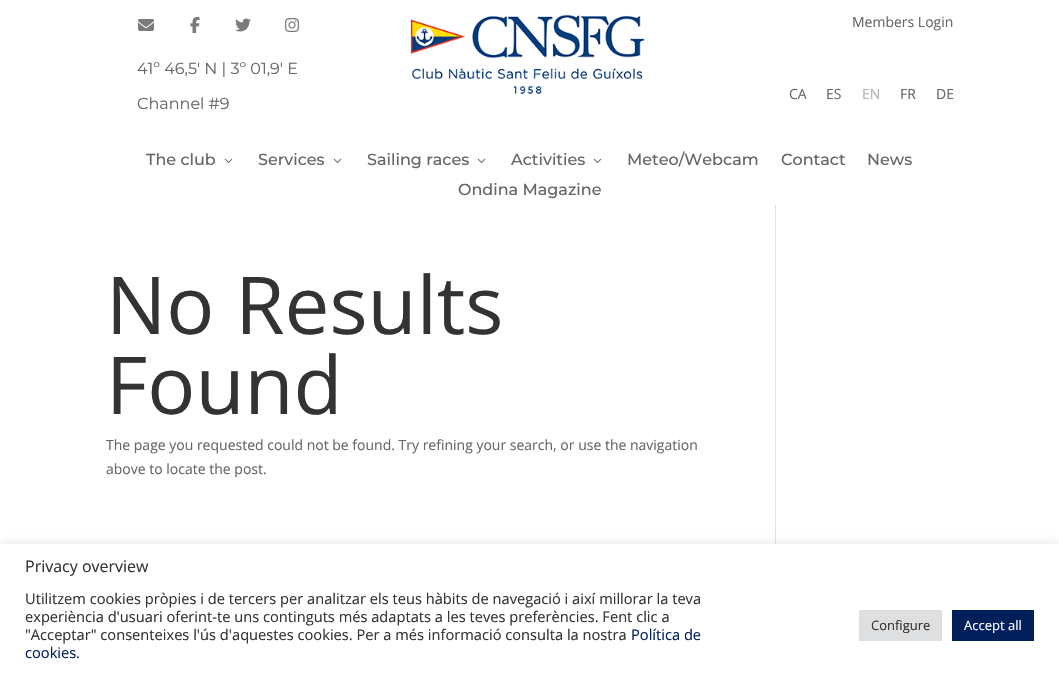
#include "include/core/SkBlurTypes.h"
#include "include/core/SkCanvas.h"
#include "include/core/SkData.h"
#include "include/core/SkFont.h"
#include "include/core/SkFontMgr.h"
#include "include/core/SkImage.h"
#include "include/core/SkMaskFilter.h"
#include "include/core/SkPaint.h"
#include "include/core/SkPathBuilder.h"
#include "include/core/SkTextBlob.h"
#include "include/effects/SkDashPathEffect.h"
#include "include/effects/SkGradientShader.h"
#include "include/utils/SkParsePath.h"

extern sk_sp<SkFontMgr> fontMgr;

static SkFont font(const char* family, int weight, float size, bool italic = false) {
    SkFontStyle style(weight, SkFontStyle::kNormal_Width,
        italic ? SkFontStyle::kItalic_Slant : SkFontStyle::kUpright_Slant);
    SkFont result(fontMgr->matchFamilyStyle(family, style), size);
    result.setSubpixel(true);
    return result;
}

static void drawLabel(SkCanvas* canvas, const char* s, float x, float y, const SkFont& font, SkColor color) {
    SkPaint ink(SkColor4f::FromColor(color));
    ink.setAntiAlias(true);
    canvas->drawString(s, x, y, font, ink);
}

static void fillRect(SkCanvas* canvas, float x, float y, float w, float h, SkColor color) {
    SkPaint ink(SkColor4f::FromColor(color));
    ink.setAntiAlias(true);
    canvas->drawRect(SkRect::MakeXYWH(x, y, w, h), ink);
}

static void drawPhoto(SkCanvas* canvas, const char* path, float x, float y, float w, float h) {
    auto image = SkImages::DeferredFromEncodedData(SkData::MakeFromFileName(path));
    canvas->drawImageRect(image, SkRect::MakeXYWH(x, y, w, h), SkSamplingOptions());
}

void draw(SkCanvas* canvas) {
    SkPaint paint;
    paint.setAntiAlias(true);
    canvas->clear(0xFFFFFFFF);
    drawPhoto(canvas, "assets/img1.png", 138, 19, 16, 12);
    drawPhoto(canvas, "assets/img2.png", 190, 17, 10, 16);
    drawPhoto(canvas, "assets/img3.png", 235, 18, 16, 14);
    drawPhoto(canvas, "assets/img4.png", 285, 18, 14, 14);
    SkFont font1 = font("Montserrat", 400, 16);
    drawLabel(canvas, "41º 46,5′ N | 3º 01,9′ E", 137, 74, font1, 0xFF666666);
    drawLabel(canvas, "Channel #9", 137, 109, font1, 0xFF666666);
    drawPhoto(canvas, "assets/img5.png", 410, 14, 235, 80);
    SkFont font2 = font("Open Sans", 400, 14);
    drawLabel(canvas, "Members Login", 852, 27, font2, 0xFF666666);
    drawLabel(canvas, "CA", 789, 99, font2, 0xFF666666);
    drawLabel(canvas, "ES", 826, 99, font2, 0xFF666666);
    drawLabel(canvas, "EN", 862, 99, font2, 0xFFB2B2B2);
    drawLabel(canvas, "FR", 900, 99, font2, 0xFF666666);
    drawLabel(canvas, "DE", 936, 99, font2, 0xFF666666);
    SkFont font3 = font("Montserrat", 500, 16);
    drawLabel(canvas, "The club", 146, 165, font3, 0xFF666666);
    drawPhoto(canvas, "assets/img6.png", 224, 158, 9, 5);
    drawLabel(canvas, "Services", 258, 165, font3, 0xFF666666);
    drawPhoto(canvas, "assets/img6.png", 333, 158, 9, 5);
    drawLabel(canvas, "Sailing races", 367, 165, font3, 0xFF666666);
    drawPhoto(canvas, "assets/img6.png", 477, 158, 9, 5);
    drawLabel(canvas, "Activities", 511, 165, font3, 0xFF666666);
    drawPhoto(canvas, "assets/img6.png", 593, 158, 9, 5);
    drawLabel(canvas, "Meteo/Webcam", 627, 165, font3, 0xFF666666);
    drawLabel(canvas, "Contact", 781, 165, font3, 0xFF666666);
    drawLabel(canvas, "News", 867, 165, font3, 0xFF666666);
    drawLabel(canvas, "Ondina Magazine", 458, 195, font3, 0xFF666666);
    SkFont font4 = font("Open Sans", 400, 80);
    drawLabel(canvas, "No Results", 106, 334, font4, 0xFF333333);
    drawLabel(canvas, "Found", 106, 414, font4, 0xFF333333);
    drawLabel(canvas, "The page you requested could not be found. Try refining your search, or use the navigation", 106, 450, font2, 0xFF666666);
    drawLabel(canvas, "above to locate the post.", 106, 474, font2, 0xFF666666);
    fillRect(canvas, 775, 205, 1, 341, 0xFFE2E2E2);
    paint.setColor(0x4DACABAB);
    paint.setMaskFilter(SkMaskFilter::MakeBlur(kNormal_SkBlurStyle, 5));
    canvas->drawRect(SkRect::MakeXYWH(0, 543, 1059, 131), paint);
    paint.setMaskFilter(nullptr);
    fillRect(canvas, 0, 544, 1059, 131, 0xFFFFFFFF);
    SkFont font5 = font("Open Sans", 400, 16);
    drawLabel(canvas, "Privacy overview", 25, 572, font5, 0xFF333333);
    SkFont font6 = font("Open Sans", 400, 14.65f);
    drawLabel(canvas, "Utilitzem cookies pròpies i de tercers per analitzar els teus hàbits de navegació i així millorar la teva", 25, 604, font6, 0xFF333333);
    drawLabel(canvas, "experiència d'usuari oferint-te uns continguts més adaptats a les teves preferències. Fent clic a", 25, 622, font6, 0xFF333333);
    drawLabel(canvas, "\"Acceptar\" consenteixes l'ús d'aquestes cookies. Per a més informació consulta la nostra", 25, 640, font6, 0xFF333333);
    drawLabel(canvas, "Política de", 631, 640, font6, 0xFF001F5B);
    drawLabel(canvas, "cookies", 25, 658, font6, 0xFF001F5B);
    drawLabel(canvas, ".", 76, 658, font6, 0xFF333333);
    fillRect(canvas, 859, 610, 83, 31, 0xFFDEDFE0);
    SkFont font7 = font("Open Sans", 400, 13);
    drawLabel(canvas, "Configure", 871, 630, font7, 0xFF333333);
    fillRect(canvas, 952, 610, 82, 31, 0xFF001F5B);
    drawLabel(canvas, "Accept all", 964, 630, font7, 0xFFFFFFFF);
}
